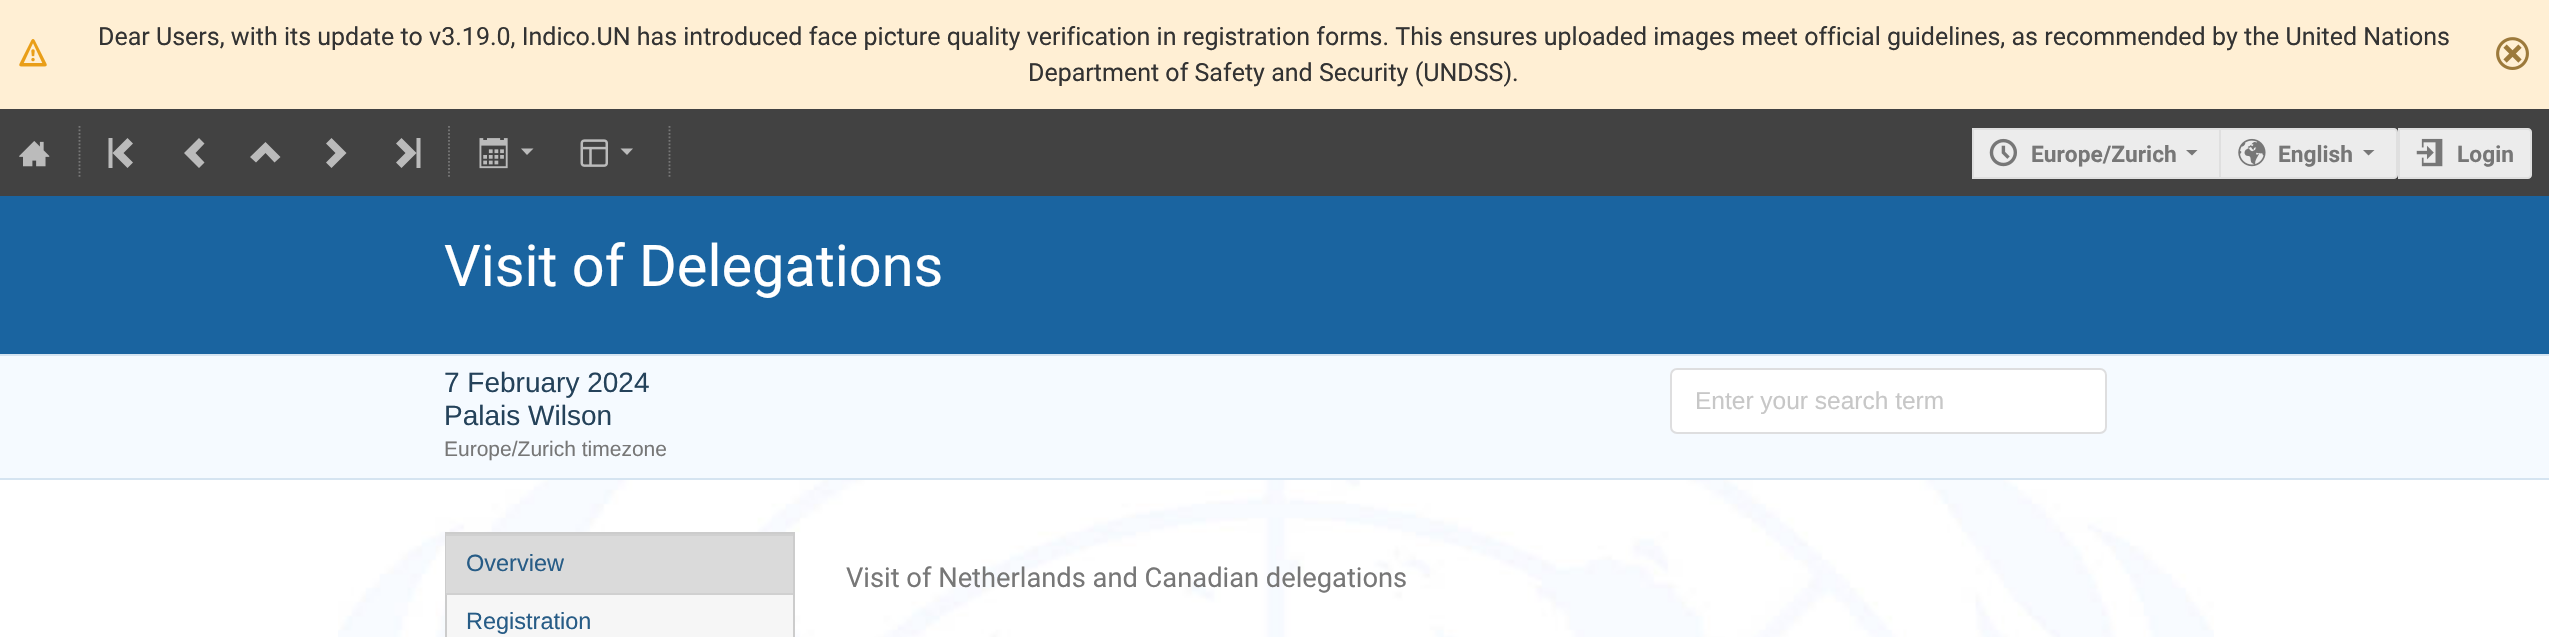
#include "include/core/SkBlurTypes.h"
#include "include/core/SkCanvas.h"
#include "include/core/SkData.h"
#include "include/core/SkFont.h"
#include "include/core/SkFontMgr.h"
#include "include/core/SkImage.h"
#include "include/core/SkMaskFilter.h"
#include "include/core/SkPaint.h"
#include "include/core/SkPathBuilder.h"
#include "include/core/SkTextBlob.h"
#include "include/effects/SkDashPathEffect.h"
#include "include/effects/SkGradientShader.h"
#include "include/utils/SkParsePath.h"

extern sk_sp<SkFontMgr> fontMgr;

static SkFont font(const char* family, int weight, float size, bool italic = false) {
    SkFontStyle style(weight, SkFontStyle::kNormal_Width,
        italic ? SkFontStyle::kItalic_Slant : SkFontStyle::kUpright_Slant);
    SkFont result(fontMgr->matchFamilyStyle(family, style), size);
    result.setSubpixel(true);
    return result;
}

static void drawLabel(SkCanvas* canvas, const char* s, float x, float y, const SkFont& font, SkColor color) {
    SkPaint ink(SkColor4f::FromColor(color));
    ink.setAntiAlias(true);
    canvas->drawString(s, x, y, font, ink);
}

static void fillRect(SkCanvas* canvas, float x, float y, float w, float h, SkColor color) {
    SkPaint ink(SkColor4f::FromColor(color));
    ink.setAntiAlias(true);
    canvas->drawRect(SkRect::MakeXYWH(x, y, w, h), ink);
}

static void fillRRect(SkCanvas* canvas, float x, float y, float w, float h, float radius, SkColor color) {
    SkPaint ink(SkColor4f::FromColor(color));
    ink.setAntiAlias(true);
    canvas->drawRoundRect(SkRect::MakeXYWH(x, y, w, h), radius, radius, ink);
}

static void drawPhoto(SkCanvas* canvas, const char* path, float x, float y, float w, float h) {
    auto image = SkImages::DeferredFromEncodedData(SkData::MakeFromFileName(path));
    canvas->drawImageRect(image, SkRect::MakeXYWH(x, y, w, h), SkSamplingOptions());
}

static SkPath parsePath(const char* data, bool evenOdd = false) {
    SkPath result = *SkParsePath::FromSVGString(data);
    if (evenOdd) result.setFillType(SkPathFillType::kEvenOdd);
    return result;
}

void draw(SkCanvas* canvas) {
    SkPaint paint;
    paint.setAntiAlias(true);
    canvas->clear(0xFFFFFFFF);
    fillRect(canvas, 0, 0, 2549, 109, 0xFFFFEFD4);
    drawPhoto(canvas, "assets/img1.png", 19, 39, 28, 28);
    SkFont font1 = font("Roboto", 400, 25.03f);
    drawLabel(canvas, "Dear Users, with its update to v3.19.0, Indico.UN has introduced face picture quality verification in registration forms. This ensures uploaded images meet official guidelines, as recommended by the United Nations", 98, 45, font1, 0xFF333333);
    drawLabel(canvas, "Department of Safety and Security (UNDSS).", 1028, 81, font1, 0xFF333333);
    drawPhoto(canvas, "assets/img2.png", 2496, 37, 33, 33);
    fillRect(canvas, 0, 109, 2549, 87, 0xFF424242);
    drawPhoto(canvas, "assets/img3.png", 19, 141, 31, 26);
    paint.setStroke(true);
    paint.setStrokeWidth(1.8f);
    paint.setColor(0xFF777777);
    paint.setPathEffect(SkDashPathEffect::Make({{1.75f, 1.75f}}, 0));
    canvas->drawPath(parsePath("M79.5 126V178.5"), paint);
    paint.setPathEffect(nullptr);
    paint.setStroke(false);
    paint.setColor(0xFFBBBBBB);
    canvas->drawPath(parsePath("M133 143.5L127.5 138L112.5 153L127.5 168L133 162.5L123.5 153ZM108.5 138V168H112.5V138Z"), paint);
    canvas->drawPath(parsePath("M199 168L204.5 162.5L195.5 153L204.5 143.5L199 138L184 153Z"), paint);
    canvas->drawPath(parsePath("M250 157L256 162.5L265.5 153L274.5 162.5L280.5 157L265.5 142Z"), paint);
    canvas->drawPath(parsePath("M331.5 138L326 143.5L335.5 153L326 162.5L331.5 168L346.5 153Z"), paint);
    canvas->drawPath(parsePath("M396 162.5L401.5 168L416.5 153L401.5 138L396 143.5L405.5 153ZM420.5 168V138H416.5V168Z"), paint);
    paint.setStroke(true);
    paint.setColor(0xFF777777);
    paint.setPathEffect(SkDashPathEffect::Make({{1.75f, 1.75f}}, 0));
    canvas->drawPath(parsePath("M449 126V178.5"), paint);
    paint.setPathEffect(nullptr);
    drawPhoto(canvas, "assets/img4.png", 479, 138, 29, 31);
    paint.setStroke(false);
    paint.setColor(0xFFBBBBBB);
    canvas->drawPath(parsePath("M521 148.5L527 155L533.5 148.5Z"), paint);
    drawPhoto(canvas, "assets/img5.png", 580, 139, 28, 28);
    canvas->drawPath(parsePath("M620.5 148.5L627 155L633 148.5Z"), paint);
    paint.setStroke(true);
    paint.setColor(0xFF777777);
    paint.setPathEffect(SkDashPathEffect::Make({{1.75f, 1.75f}}, 0));
    canvas->drawPath(parsePath("M669.5 126V178.5"), paint);
    paint.setPathEffect(nullptr);
    fillRect(canvas, 1974, 130, 245, 47, 0xFFECECEC);
    fillRect(canvas, 1972, 128, 247, 2, 0xFFDFDFDF);
    fillRect(canvas, 1972, 177, 247, 2, 0xFFDFDFDF);
    fillRect(canvas, 1972, 128, 2, 51, 0xFFDFDFDF);
    drawPhoto(canvas, "assets/img6.png", 1989, 138, 28, 29);
    SkFont font2 = font("Roboto", 700, 22.75f);
    drawLabel(canvas, "Europe/Zurich", 2031, 162, font2, 0xFF777777);
    paint.setStroke(false);
    canvas->drawPath(parsePath("M2186 150L2192 155.5L2197.5 150Z"), paint);
    paint.setColor(0xFFECECEC);
    canvas->drawPath(parsePath("M2220 129H2394C2395.5 129 2397 130.5 2397 132V175C2397 176.5 2395.5 178 2394 178H2220Z"), paint);
    paint.setStroke(true);
    paint.setStrokeWidth(2);
    paint.setColor(0xFFDFDFDF);
    canvas->drawPath(parsePath("M2220 129H2394C2395.5 129 2397 130.5 2397 132V175C2397 176.5 2395.5 178 2394 178H2220Z"), paint);
    drawPhoto(canvas, "assets/img7.png", 2238, 138, 28, 29);
    drawLabel(canvas, "English", 2278, 162, font2, 0xFF777777);
    paint.setStroke(false);
    paint.setColor(0xFF777777);
    canvas->drawPath(parsePath("M2363 150L2368.5 155.5L2374.5 150Z"), paint);
    paint.setColor(0xFFECECEC);
    canvas->drawPath(parsePath("M2399 129H2528C2529.5 129 2531 130.5 2531 132V175C2531 176.5 2529.5 178 2528 178H2399Z"), paint);
    paint.setStroke(true);
    paint.setColor(0xFFDFDFDF);
    canvas->drawPath(parsePath("M2399 129H2528C2529.5 129 2531 130.5 2531 132V175C2531 176.5 2529.5 178 2528 178H2399Z"), paint);
    drawPhoto(canvas, "assets/img8.png", 2416, 138, 27, 29);
    drawLabel(canvas, "Login", 2457, 162, font2, 0xFF777777);
    drawPhoto(canvas, "assets/img9.png", 338, 480, 1876, 157);
    fillRect(canvas, 0, 196, 2549, 158, 0xFF1A64A0);
    SkFont font3 = font("Roboto", 400, 57.75f);
    drawLabel(canvas, "Visit of Delegations", 444, 286, font3, 0xFFFFFFFF);
    fillRect(canvas, 0, 356, 2549, 122, 0xFFF5FAFF);
    fillRect(canvas, 0, 354, 2549, 2, 0xFFD5E4F1);
    fillRect(canvas, 0, 478, 2549, 2, 0xFFD5E4F1);
    SkFont font4 = font("Liberation Sans", 400, 28);
    drawLabel(canvas, "7 February 2024", 444, 392, font4, 0xFF24425A);
    drawLabel(canvas, "Palais Wilson", 444, 425, font4, 0xFF24425A);
    SkFont font5 = font("Liberation Sans", 400, 21);
    drawLabel(canvas, "Europe/Zurich timezone", 444, 456, font5, 0xFF777777);
    fillRRect(canvas, 1670, 368, 437, 66, 7, 0xFFFFFFFF);
    paint.setColor(0x26222426);
    canvas->drawRoundRect(SkRect::MakeXYWH(1671, 369, 435, 64), 6, 6, paint);
    SkFont font6 = font("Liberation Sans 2", 400, 24.5f);
    drawLabel(canvas, "Enter your search term", 1695, 409, font6, 0xFFC7C7C7);
    fillRect(canvas, 447, 595, 346, 42, 0xFFF6F6F6);
    paint.setColor(0xFFCCCCCC);
    canvas->drawRect(SkRect::MakeXYWH(446, 533, 348, 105), paint);
    fillRect(canvas, 446, 536, 347, 57, 0xFFDADADA);
    fillRect(canvas, 446, 534, 347, 2, 0xFFD0D0D0);
    fillRect(canvas, 446, 593, 347, 2, 0xFFD0D0D0);
    SkFont font7 = font("Liberation Sans 2", 400, 23.5f);
    drawLabel(canvas, "Overview", 466, 571, font7, 0xFF275C86);
    drawLabel(canvas, "Registration", 466, 629, font7, 0xFF275C86);
    SkFont font8 = font("Roboto", 400, 27.3f);
    drawLabel(canvas, "Visit of Netherlands and Canadian delegations", 846, 587, font8, 0xFF777777);
}
